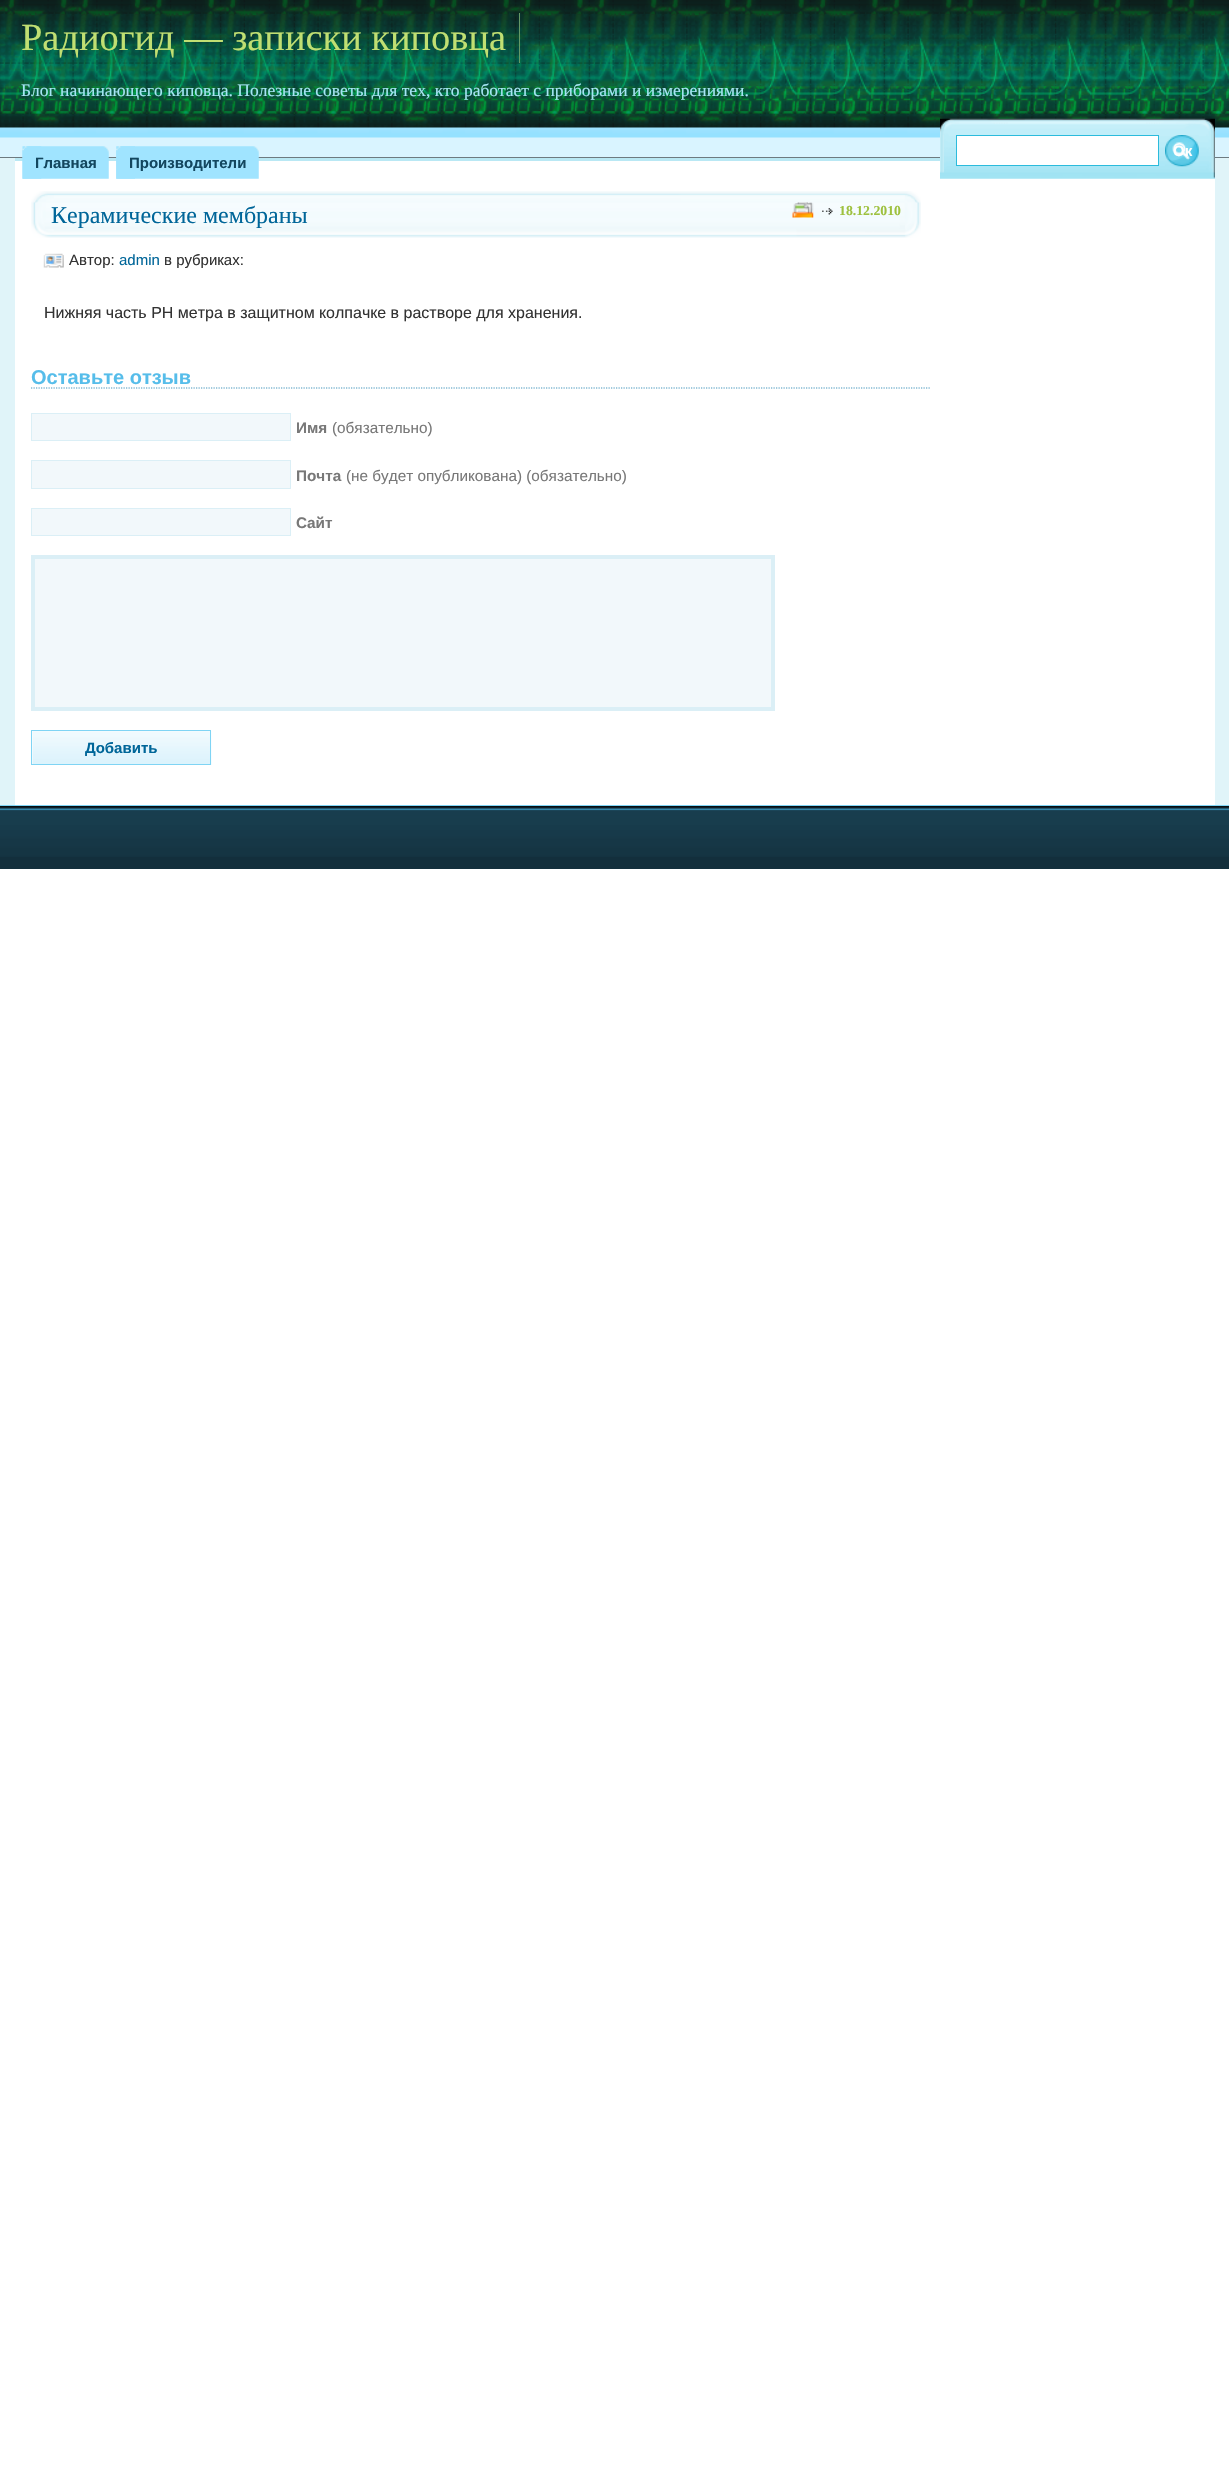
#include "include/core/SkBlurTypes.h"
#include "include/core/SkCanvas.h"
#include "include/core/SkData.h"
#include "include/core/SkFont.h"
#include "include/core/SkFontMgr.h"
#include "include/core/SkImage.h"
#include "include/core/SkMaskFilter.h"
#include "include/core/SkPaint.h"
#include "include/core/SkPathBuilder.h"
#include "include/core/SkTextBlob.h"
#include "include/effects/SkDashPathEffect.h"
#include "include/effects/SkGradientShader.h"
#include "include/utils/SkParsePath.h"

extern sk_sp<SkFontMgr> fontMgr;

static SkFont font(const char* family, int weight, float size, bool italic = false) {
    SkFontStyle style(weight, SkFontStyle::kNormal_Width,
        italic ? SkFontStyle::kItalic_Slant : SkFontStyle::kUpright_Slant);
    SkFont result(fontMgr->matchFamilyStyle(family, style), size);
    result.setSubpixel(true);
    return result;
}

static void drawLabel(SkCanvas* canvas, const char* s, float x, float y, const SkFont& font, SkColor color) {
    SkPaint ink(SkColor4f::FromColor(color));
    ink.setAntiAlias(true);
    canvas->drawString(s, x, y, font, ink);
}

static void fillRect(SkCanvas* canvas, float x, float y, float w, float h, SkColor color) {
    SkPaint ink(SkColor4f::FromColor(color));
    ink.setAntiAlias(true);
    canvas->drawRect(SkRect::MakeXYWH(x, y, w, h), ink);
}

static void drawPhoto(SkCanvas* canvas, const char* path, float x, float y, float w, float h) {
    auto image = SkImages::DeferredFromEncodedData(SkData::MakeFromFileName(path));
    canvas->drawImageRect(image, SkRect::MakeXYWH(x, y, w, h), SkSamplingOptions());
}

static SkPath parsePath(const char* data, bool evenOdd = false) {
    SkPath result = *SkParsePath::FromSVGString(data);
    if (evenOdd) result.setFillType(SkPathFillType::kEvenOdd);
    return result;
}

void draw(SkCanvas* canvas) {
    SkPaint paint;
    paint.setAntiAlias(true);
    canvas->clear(0xFFFFFFFF);
    fillRect(canvas, 0, 157, 1229, 1, 0xFF000000);
    drawPhoto(canvas, "assets/img1.png", 0, 0, 1229, 158);
    fillRect(canvas, 519, 13, 1, 50, 0xFF669966);
    SkFont font1 = font("Liberation Serif", 400, 38.4f);
    drawLabel(canvas, "Радиогид — записки киповца", 21, 50, font1, 0xFFC0DF72);
    SkFont font2 = font("Liberation Serif", 400, 17.5f);
    drawLabel(canvas, "Блог начинающего киповца. Полезные советы для тех, кто работает с приборами и измерениями.", 21, 96, font2, 0xFFA6E5F4);
    fillRect(canvas, 0, 158, 1229, 647, 0xFFE0F4F9);
    fillRect(canvas, 15, 161, 1200, 644, 0xFFFFFFFF);
    drawPhoto(canvas, "assets/img2.png", 940, 118, 275, 61);
    paint.setColor(0xFFFFFFFF);
    canvas->drawRect(SkRect::MakeXYWH(956.5f, 135.5f, 202, 30), paint);
    paint.setStroke(true);
    paint.setStrokeWidth(1);
    paint.setColor(0xFF2BBBDC);
    canvas->drawRect(SkRect::MakeXYWH(956.5f, 135.5f, 202, 30), paint);
    drawPhoto(canvas, "assets/img3.png", 1165, 135, 34, 32);
    SkFont font3 = font("Liberation Sans", 700, 15);
    drawLabel(canvas, "Ок", 1173, 156, font3, 0xFFFFFFFF);
    fillRect(canvas, 15, 158, 925, 3, 0xFFB9E8F4);
    drawPhoto(canvas, "assets/img4.png", 22, 146, 87, 33);
    drawPhoto(canvas, "assets/img5.png", 22, 146, 20, 33);
    drawLabel(canvas, "Главная", 35, 168, font3, 0xFF13475F);
    drawPhoto(canvas, "assets/img6.png", 116, 146, 143, 33);
    drawPhoto(canvas, "assets/img7.png", 116, 146, 19, 33);
    drawLabel(canvas, "Производители", 129, 168, font3, 0xFF13475F);
    drawPhoto(canvas, "assets/img8.png", 31, 191, 890, 17);
    drawPhoto(canvas, "assets/img9.png", 31, 202, 890, 36);
    SkFont font4 = font("Liberation Serif", 400, 24);
    drawLabel(canvas, "Керамические мембраны", 51, 223, font4, 0xFF006699);
    drawPhoto(canvas, "assets/img10.png", 792, 202, 41, 16);
    SkFont font5 = font("Liberation Serif", 700, 13.75f);
    drawLabel(canvas, "18.12.2010", 839, 215, font5, 0xFF9EC13F);
    drawPhoto(canvas, "assets/img11.png", 43, 253, 21, 15);
    SkFont font6 = font("Liberation Sans", 400, 15);
    drawLabel(canvas, "Автор:", 69, 265, font6, 0xFF333333);
    drawLabel(canvas, "admin", 119, 265, font6, 0xFF006699);
    drawLabel(canvas, "в рубриках:", 164, 265, font6, 0xFF333333);
    SkFont font7 = font("Liberation Sans", 400, 16);
    drawLabel(canvas, "Нижняя часть PH метра в защитном колпачке в растворе для хранения.", 44, 318, font7, 0xFF333333);
    paint.setStrokeWidth(1.2f);
    paint.setColor(0xFF4395BC);
    paint.setPathEffect(SkDashPathEffect::Make({{1.25f, 1.25f}}, 0));
    canvas->drawPath(parsePath("M31 388H931"), paint);
    paint.setPathEffect(nullptr);
    SkFont font8 = font("Liberation Sans", 700, 20);
    drawLabel(canvas, "Оставьте отзыв", 31, 384, font8, 0xFF56BDEA);
    paint.setStroke(false);
    paint.setColor(0xFFF2F8FB);
    canvas->drawRect(SkRect::MakeXYWH(31.5f, 413.5f, 259, 27), paint);
    paint.setStroke(true);
    paint.setStrokeWidth(1);
    paint.setColor(0xFFDBEFF6);
    canvas->drawRect(SkRect::MakeXYWH(31.5f, 413.5f, 259, 27), paint);
    SkFont font9 = font("Liberation Sans", 700, 15.3f);
    drawLabel(canvas, "Имя", 296, 433, font9, 0xFF787878);
    SkFont font10 = font("Liberation Sans", 400, 15.3f);
    drawLabel(canvas, "(обязательно)", 332, 433, font10, 0xFF787878);
    paint.setStroke(false);
    paint.setColor(0xFFF2F8FB);
    canvas->drawRect(SkRect::MakeXYWH(31.5f, 460.5f, 259, 28), paint);
    paint.setStroke(true);
    paint.setColor(0xFFDBEFF6);
    canvas->drawRect(SkRect::MakeXYWH(31.5f, 460.5f, 259, 28), paint);
    drawLabel(canvas, "Почта", 296, 481, font9, 0xFF787878);
    drawLabel(canvas, "(не будет опубликована) (обязательно)", 346, 481, font10, 0xFF787878);
    paint.setStroke(false);
    paint.setColor(0xFFF2F8FB);
    canvas->drawRect(SkRect::MakeXYWH(31.5f, 508.5f, 259, 27), paint);
    paint.setStroke(true);
    paint.setColor(0xFFDBEFF6);
    canvas->drawRect(SkRect::MakeXYWH(31.5f, 508.5f, 259, 27), paint);
    drawLabel(canvas, "Сайт", 296, 528, font9, 0xFF787878);
    paint.setStroke(false);
    paint.setColor(0xFFF2F8FB);
    canvas->drawRect(SkRect::MakeXYWH(33, 557, 740, 152), paint);
    paint.setStroke(true);
    paint.setStrokeWidth(4);
    paint.setColor(0xFFDBEFF6);
    canvas->drawRect(SkRect::MakeXYWH(33, 557, 740, 152), paint);
    drawPhoto(canvas, "assets/img12.png", 32, 731, 180, 34);
    paint.setStrokeWidth(1);
    paint.setColor(0xFF7FD4F4);
    canvas->drawRect(SkRect::MakeXYWH(31.5f, 730.5f, 179, 34), paint);
    drawLabel(canvas, "Добавить", 85, 753, font3, 0xFF006699);
    fillRect(canvas, 0, 806, 1229, 63, 0xFF132F3C);
    drawPhoto(canvas, "assets/img13.png", 0, 806, 1229, 51);
    fillRect(canvas, 0, 805, 1229, 1, 0xFF7FD4F4);
}
